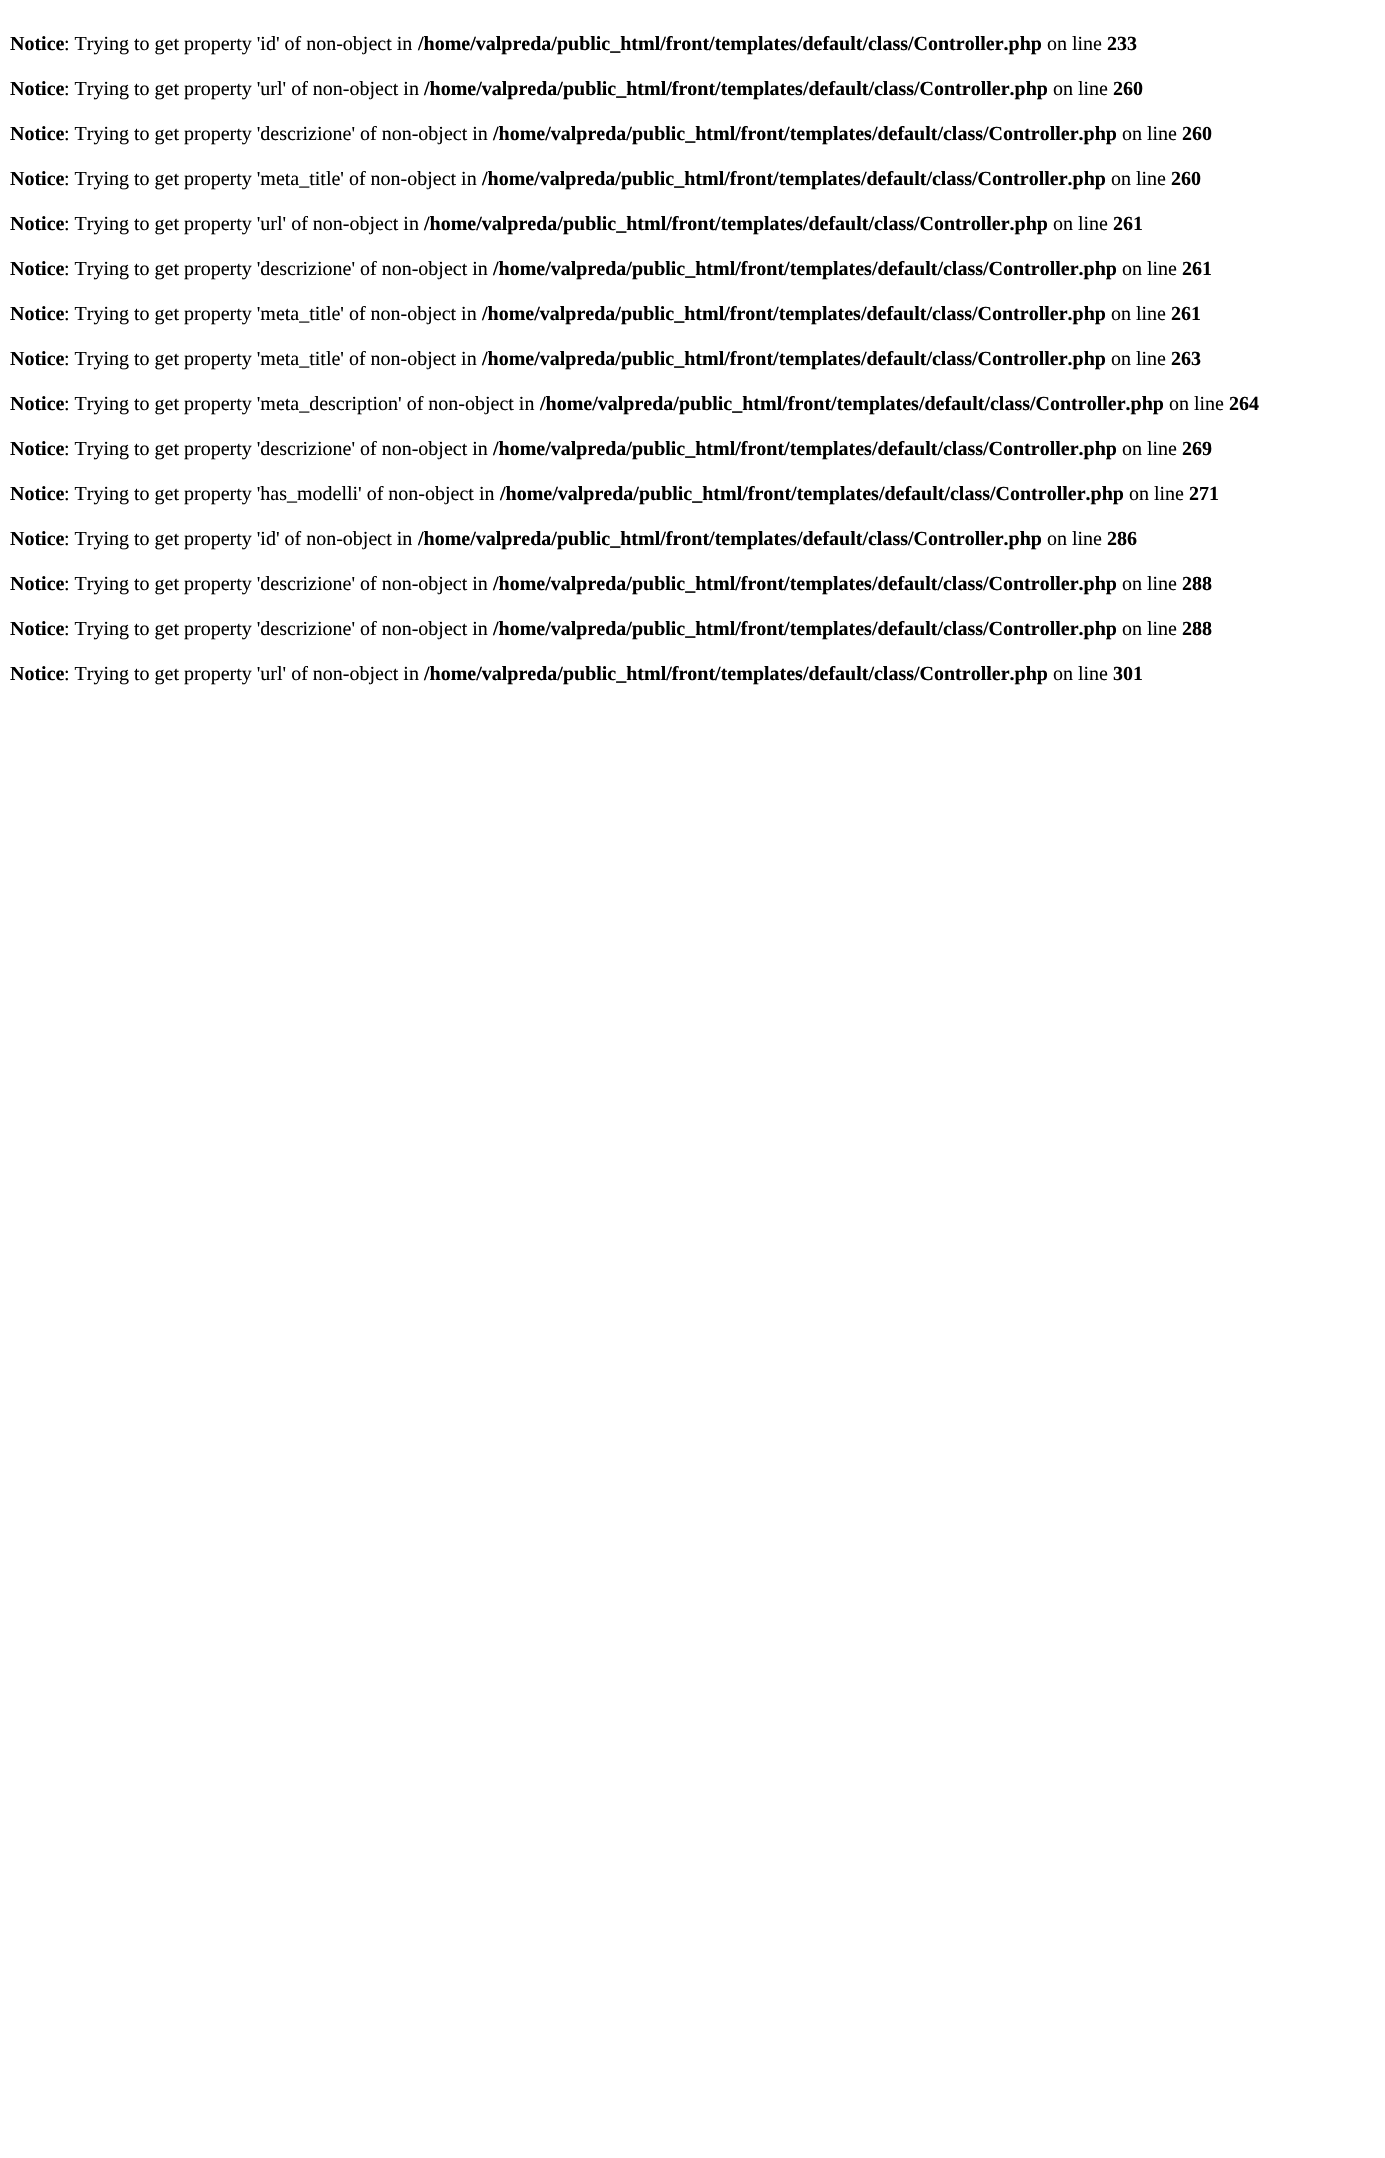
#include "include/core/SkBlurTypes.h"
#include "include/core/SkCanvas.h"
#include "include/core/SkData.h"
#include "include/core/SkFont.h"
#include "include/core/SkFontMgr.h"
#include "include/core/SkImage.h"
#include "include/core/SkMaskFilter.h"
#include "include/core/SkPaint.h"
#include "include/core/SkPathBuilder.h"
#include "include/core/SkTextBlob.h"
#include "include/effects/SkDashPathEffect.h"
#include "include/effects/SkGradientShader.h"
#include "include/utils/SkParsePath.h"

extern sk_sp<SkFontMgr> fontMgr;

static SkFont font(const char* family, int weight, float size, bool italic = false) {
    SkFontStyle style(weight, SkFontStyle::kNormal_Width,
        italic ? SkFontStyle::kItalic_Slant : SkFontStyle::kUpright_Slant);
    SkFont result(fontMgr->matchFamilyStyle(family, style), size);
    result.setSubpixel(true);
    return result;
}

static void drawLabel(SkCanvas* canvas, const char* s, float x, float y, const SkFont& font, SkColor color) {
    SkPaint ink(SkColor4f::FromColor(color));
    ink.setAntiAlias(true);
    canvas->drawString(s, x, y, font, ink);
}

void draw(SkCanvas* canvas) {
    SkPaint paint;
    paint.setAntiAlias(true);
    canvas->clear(0xFFFFFFFF);
    SkFont font1 = font("Liberation Serif", 700, 20);
    drawLabel(canvas, "Notice", 10, 50, font1, 0xFF000000);
    SkFont font2 = font("Liberation Serif", 400, 20);
    drawLabel(canvas, ": Trying to get property 'id' of non-object in", 64, 50, font2, 0xFF000000);
    drawLabel(canvas, "/home/valpreda/public_html/front/templates/default/class/Controller.php", 418, 50, font1, 0xFF000000);
    drawLabel(canvas, "on line", 1047, 50, font2, 0xFF000000);
    drawLabel(canvas, "233", 1107, 50, font1, 0xFF000000);
    drawLabel(canvas, "Notice", 10, 95, font1, 0xFF000000);
    drawLabel(canvas, ": Trying to get property 'url' of non-object in", 64, 95, font2, 0xFF000000);
    drawLabel(canvas, "/home/valpreda/public_html/front/templates/default/class/Controller.php", 424, 95, font1, 0xFF000000);
    drawLabel(canvas, "on line", 1053, 95, font2, 0xFF000000);
    drawLabel(canvas, "260", 1113, 95, font1, 0xFF000000);
    drawLabel(canvas, "Notice", 10, 140, font1, 0xFF000000);
    drawLabel(canvas, ": Trying to get property 'descrizione' of non-object in", 64, 140, font2, 0xFF000000);
    drawLabel(canvas, "/home/valpreda/public_html/front/templates/default/class/Controller.php", 493, 140, font1, 0xFF000000);
    drawLabel(canvas, "on line", 1122, 140, font2, 0xFF000000);
    drawLabel(canvas, "260", 1182, 140, font1, 0xFF000000);
    drawLabel(canvas, "Notice", 10, 185, font1, 0xFF000000);
    drawLabel(canvas, ": Trying to get property 'meta_title' of non-object in", 64, 185, font2, 0xFF000000);
    drawLabel(canvas, "/home/valpreda/public_html/front/templates/default/class/Controller.php", 482, 185, font1, 0xFF000000);
    drawLabel(canvas, "on line", 1111, 185, font2, 0xFF000000);
    drawLabel(canvas, "260", 1171, 185, font1, 0xFF000000);
    drawLabel(canvas, "Notice", 10, 230, font1, 0xFF000000);
    drawLabel(canvas, ": Trying to get property 'url' of non-object in", 64, 230, font2, 0xFF000000);
    drawLabel(canvas, "/home/valpreda/public_html/front/templates/default/class/Controller.php", 424, 230, font1, 0xFF000000);
    drawLabel(canvas, "on line", 1053, 230, font2, 0xFF000000);
    drawLabel(canvas, "261", 1113, 230, font1, 0xFF000000);
    drawLabel(canvas, "Notice", 10, 275, font1, 0xFF000000);
    drawLabel(canvas, ": Trying to get property 'descrizione' of non-object in", 64, 275, font2, 0xFF000000);
    drawLabel(canvas, "/home/valpreda/public_html/front/templates/default/class/Controller.php", 493, 275, font1, 0xFF000000);
    drawLabel(canvas, "on line", 1122, 275, font2, 0xFF000000);
    drawLabel(canvas, "261", 1182, 275, font1, 0xFF000000);
    drawLabel(canvas, "Notice", 10, 320, font1, 0xFF000000);
    drawLabel(canvas, ": Trying to get property 'meta_title' of non-object in", 64, 320, font2, 0xFF000000);
    drawLabel(canvas, "/home/valpreda/public_html/front/templates/default/class/Controller.php", 482, 320, font1, 0xFF000000);
    drawLabel(canvas, "on line", 1111, 320, font2, 0xFF000000);
    drawLabel(canvas, "261", 1171, 320, font1, 0xFF000000);
    drawLabel(canvas, "Notice", 10, 365, font1, 0xFF000000);
    drawLabel(canvas, ": Trying to get property 'meta_title' of non-object in", 64, 365, font2, 0xFF000000);
    drawLabel(canvas, "/home/valpreda/public_html/front/templates/default/class/Controller.php", 482, 365, font1, 0xFF000000);
    drawLabel(canvas, "on line", 1111, 365, font2, 0xFF000000);
    drawLabel(canvas, "263", 1171, 365, font1, 0xFF000000);
    drawLabel(canvas, "Notice", 10, 410, font1, 0xFF000000);
    drawLabel(canvas, ": Trying to get property 'meta_description' of non-object in", 64, 410, font2, 0xFF000000);
    drawLabel(canvas, "/home/valpreda/public_html/front/templates/default/class/Controller.php", 540, 410, font1, 0xFF000000);
    drawLabel(canvas, "on line", 1169, 410, font2, 0xFF000000);
    drawLabel(canvas, "264", 1229, 410, font1, 0xFF000000);
    drawLabel(canvas, "Notice", 10, 455, font1, 0xFF000000);
    drawLabel(canvas, ": Trying to get property 'descrizione' of non-object in", 64, 455, font2, 0xFF000000);
    drawLabel(canvas, "/home/valpreda/public_html/front/templates/default/class/Controller.php", 493, 455, font1, 0xFF000000);
    drawLabel(canvas, "on line", 1122, 455, font2, 0xFF000000);
    drawLabel(canvas, "269", 1182, 455, font1, 0xFF000000);
    drawLabel(canvas, "Notice", 10, 500, font1, 0xFF000000);
    drawLabel(canvas, ": Trying to get property 'has_modelli' of non-object in", 64, 500, font2, 0xFF000000);
    drawLabel(canvas, "/home/valpreda/public_html/front/templates/default/class/Controller.php", 500, 500, font1, 0xFF000000);
    drawLabel(canvas, "on line", 1129, 500, font2, 0xFF000000);
    drawLabel(canvas, "271", 1189, 500, font1, 0xFF000000);
    drawLabel(canvas, "Notice", 10, 545, font1, 0xFF000000);
    drawLabel(canvas, ": Trying to get property 'id' of non-object in", 64, 545, font2, 0xFF000000);
    drawLabel(canvas, "/home/valpreda/public_html/front/templates/default/class/Controller.php", 418, 545, font1, 0xFF000000);
    drawLabel(canvas, "on line", 1047, 545, font2, 0xFF000000);
    drawLabel(canvas, "286", 1107, 545, font1, 0xFF000000);
    drawLabel(canvas, "Notice", 10, 590, font1, 0xFF000000);
    drawLabel(canvas, ": Trying to get property 'descrizione' of non-object in", 64, 590, font2, 0xFF000000);
    drawLabel(canvas, "/home/valpreda/public_html/front/templates/default/class/Controller.php", 493, 590, font1, 0xFF000000);
    drawLabel(canvas, "on line", 1122, 590, font2, 0xFF000000);
    drawLabel(canvas, "288", 1182, 590, font1, 0xFF000000);
    drawLabel(canvas, "Notice", 10, 635, font1, 0xFF000000);
    drawLabel(canvas, ": Trying to get property 'descrizione' of non-object in", 64, 635, font2, 0xFF000000);
    drawLabel(canvas, "/home/valpreda/public_html/front/templates/default/class/Controller.php", 493, 635, font1, 0xFF000000);
    drawLabel(canvas, "on line", 1122, 635, font2, 0xFF000000);
    drawLabel(canvas, "288", 1182, 635, font1, 0xFF000000);
    drawLabel(canvas, "Notice", 10, 680, font1, 0xFF000000);
    drawLabel(canvas, ": Trying to get property 'url' of non-object in", 64, 680, font2, 0xFF000000);
    drawLabel(canvas, "/home/valpreda/public_html/front/templates/default/class/Controller.php", 424, 680, font1, 0xFF000000);
    drawLabel(canvas, "on line", 1053, 680, font2, 0xFF000000);
    drawLabel(canvas, "301", 1113, 680, font1, 0xFF000000);
}
